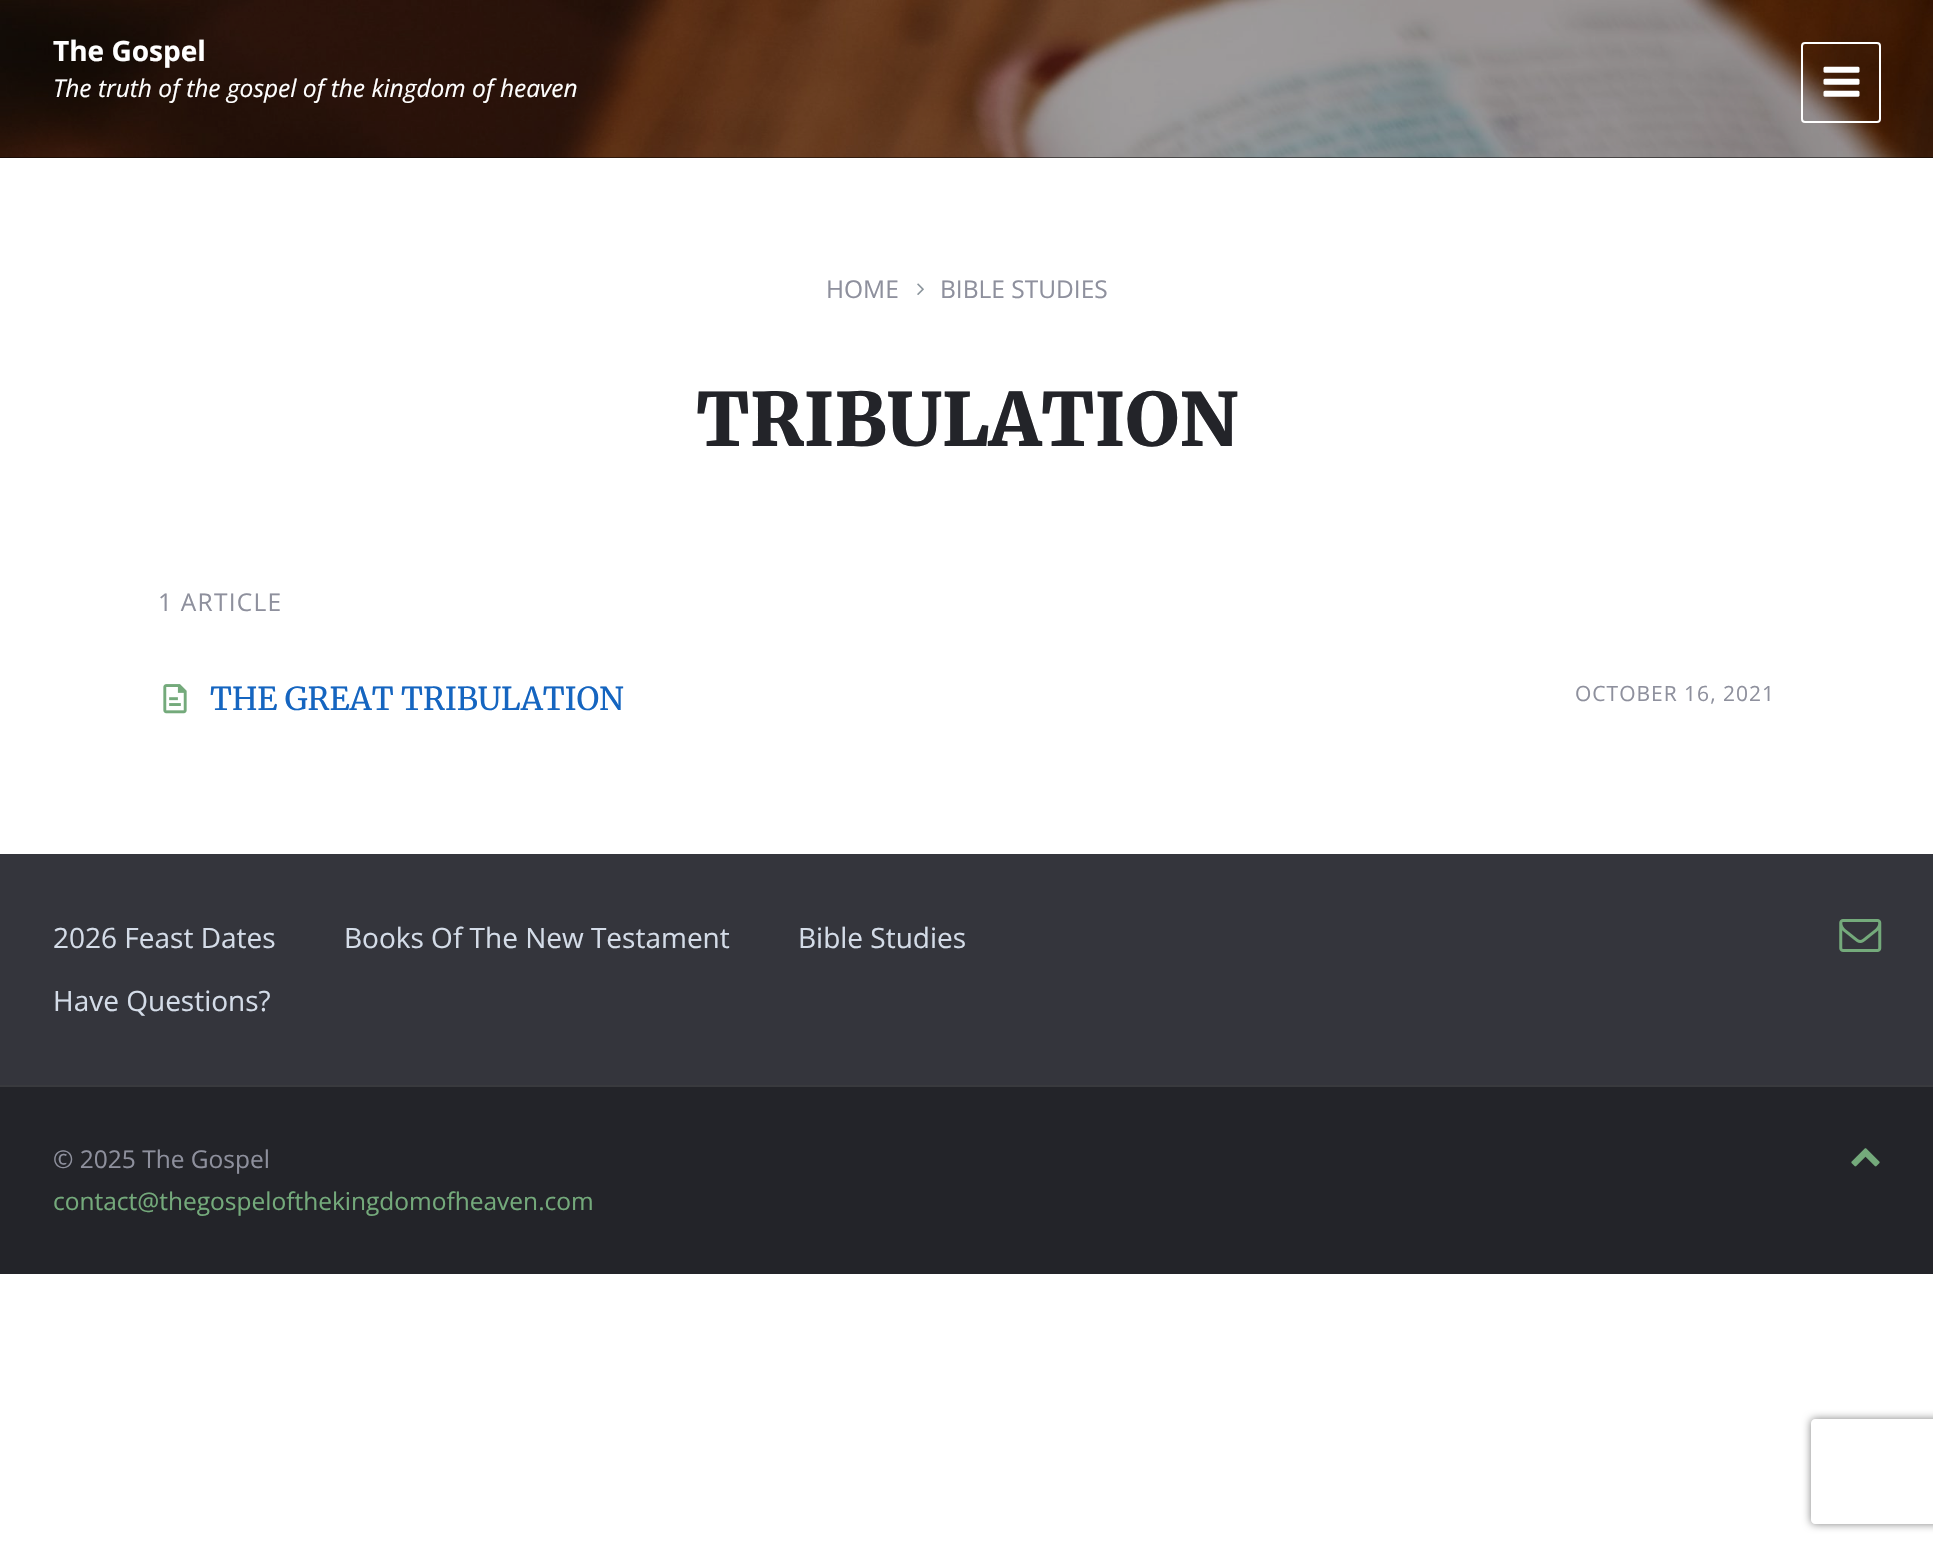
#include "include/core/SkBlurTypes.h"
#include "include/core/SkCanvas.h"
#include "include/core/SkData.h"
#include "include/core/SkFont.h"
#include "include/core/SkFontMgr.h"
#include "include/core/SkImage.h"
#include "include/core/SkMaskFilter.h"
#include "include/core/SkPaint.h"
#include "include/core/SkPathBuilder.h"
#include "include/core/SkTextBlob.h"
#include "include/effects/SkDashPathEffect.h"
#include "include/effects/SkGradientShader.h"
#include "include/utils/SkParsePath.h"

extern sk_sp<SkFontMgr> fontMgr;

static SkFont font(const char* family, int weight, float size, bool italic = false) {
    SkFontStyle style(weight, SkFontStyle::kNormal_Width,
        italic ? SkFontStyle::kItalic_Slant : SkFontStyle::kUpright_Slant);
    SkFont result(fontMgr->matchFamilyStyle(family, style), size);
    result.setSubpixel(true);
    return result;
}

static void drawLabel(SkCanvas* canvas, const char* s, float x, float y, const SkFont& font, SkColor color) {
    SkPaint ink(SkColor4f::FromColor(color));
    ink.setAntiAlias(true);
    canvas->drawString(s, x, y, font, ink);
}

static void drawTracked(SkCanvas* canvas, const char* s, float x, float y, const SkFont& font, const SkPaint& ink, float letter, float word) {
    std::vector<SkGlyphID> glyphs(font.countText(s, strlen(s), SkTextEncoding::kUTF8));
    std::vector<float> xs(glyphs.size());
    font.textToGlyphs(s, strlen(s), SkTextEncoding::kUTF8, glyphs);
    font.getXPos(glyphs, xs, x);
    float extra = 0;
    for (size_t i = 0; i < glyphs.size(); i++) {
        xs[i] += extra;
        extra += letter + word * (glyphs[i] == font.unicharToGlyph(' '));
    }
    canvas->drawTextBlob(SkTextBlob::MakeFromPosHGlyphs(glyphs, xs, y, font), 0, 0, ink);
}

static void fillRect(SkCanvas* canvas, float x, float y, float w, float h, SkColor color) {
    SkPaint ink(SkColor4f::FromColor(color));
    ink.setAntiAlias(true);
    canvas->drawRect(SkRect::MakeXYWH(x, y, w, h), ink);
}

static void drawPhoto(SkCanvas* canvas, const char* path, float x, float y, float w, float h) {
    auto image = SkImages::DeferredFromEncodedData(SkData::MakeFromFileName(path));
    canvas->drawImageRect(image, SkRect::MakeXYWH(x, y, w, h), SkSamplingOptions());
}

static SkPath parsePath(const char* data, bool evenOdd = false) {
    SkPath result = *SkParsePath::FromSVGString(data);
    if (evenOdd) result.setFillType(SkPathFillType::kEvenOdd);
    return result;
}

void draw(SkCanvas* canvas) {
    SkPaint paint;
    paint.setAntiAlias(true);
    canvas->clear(0xFFFFFFFF);
    fillRect(canvas, 0, 157, 1933, 1, 0xFF000000);
    drawPhoto(canvas, "assets/img1.png", 0, 0, 1933, 158);
    SkFont font1 = font("Open Sans", 700, 28);
    drawLabel(canvas, "The Gospel", 53, 61, font1, 0xFFFFFFFF);
    SkFont font2 = font("Open Sans", 400, 24.5f, true);
    drawLabel(canvas, "The truth of the gospel of the kingdom of heaven", 53, 97, font2, 0xFFFFFFFF);
    paint.setStroke(true);
    paint.setStrokeWidth(2);
    paint.setColor(0xFFFFFFFF);
    canvas->drawRoundRect(SkRect::MakeXYWH(1802, 43, 78, 79), 3, 3, paint);
    drawPhoto(canvas, "assets/img2.png", 1823, 66, 37, 31);
    SkFont font3 = font("Open Sans", 400, 24.5f);
    drawLabel(canvas, "HOME", 826, 298, font3, 0xFF8E909D);
    drawPhoto(canvas, "assets/img3.png", 917, 283, 7, 12);
    drawLabel(canvas, "BIBLE STUDIES", 940, 298, font3, 0xFF8E909D);
    SkFont font4 = font("Merriweather", 900, 73.5f);
    drawLabel(canvas, "TRIBULATION", 696, 446, font4, 0xFF232429);
    paint.setStroke(false);
    paint.setColor(0xFF8E909D);
    drawTracked(canvas, "1 ARTICLE", 158, 611, font3, paint, 1.25f, 0);
    drawPhoto(canvas, "assets/img4.png", 163, 684, 24, 30);
    SkFont font5 = font("Merriweather", 400, 31.5f);
    drawLabel(canvas, "THE GREAT TRIBULATION", 210, 710, font5, 0xFF1565C0);
    SkFont font6 = font("Open Sans", 400, 21);
    drawTracked(canvas, "OCTOBER 16, 2021", 1575, 701, font6, paint, 1, 0);
    fillRect(canvas, 0, 1087, 1933, 187, 0xFF232429);
    fillRect(canvas, 0, 854, 1933, 231, 0xFF34353C);
    SkFont font7 = font("Open Sans", 400, 28);
    drawLabel(canvas, "2026 Feast Dates", 53, 948, font7, 0xFFD4DCE8);
    drawLabel(canvas, "Books Of The New Testament", 344, 948, font7, 0xFFD4DCE8);
    drawLabel(canvas, "Bible Studies", 798, 948, font7, 0xFFD4DCE8);
    drawLabel(canvas, "Have Questions?", 53, 1011, font7, 0xFFD4DCE8);
    drawPhoto(canvas, "assets/img5.png", 1839, 919, 43, 33);
    fillRect(canvas, 0, 1085, 1933, 2, 0xFF393A3E);
    drawLabel(canvas, "© 2025 The Gospel", 53, 1168, font3, 0xFF8E909D);
    drawLabel(canvas, "contact@thegospelofthekingdomofheaven.com", 53, 1210, font3, 0xFF74AA7B);
    drawPhoto(canvas, "assets/img6.png", 1851, 1148, 29, 19);
    canvas->save();
    canvas->clipPath(parsePath("M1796 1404H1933V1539H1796ZM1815 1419H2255C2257 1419 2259 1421 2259 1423V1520C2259 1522 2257 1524 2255 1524H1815C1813 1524 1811 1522 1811 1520V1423C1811 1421 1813 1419 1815 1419Z", true), true);
    paint.setColor(0xFF808080);
    paint.setMaskFilter(SkMaskFilter::MakeBlur(kNormal_SkBlurStyle, 4.5f));
    canvas->drawRoundRect(SkRect::MakeXYWH(1811, 1419, 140, 105), 4, 4, paint);
    paint.setMaskFilter(nullptr);
    canvas->restore();
}
